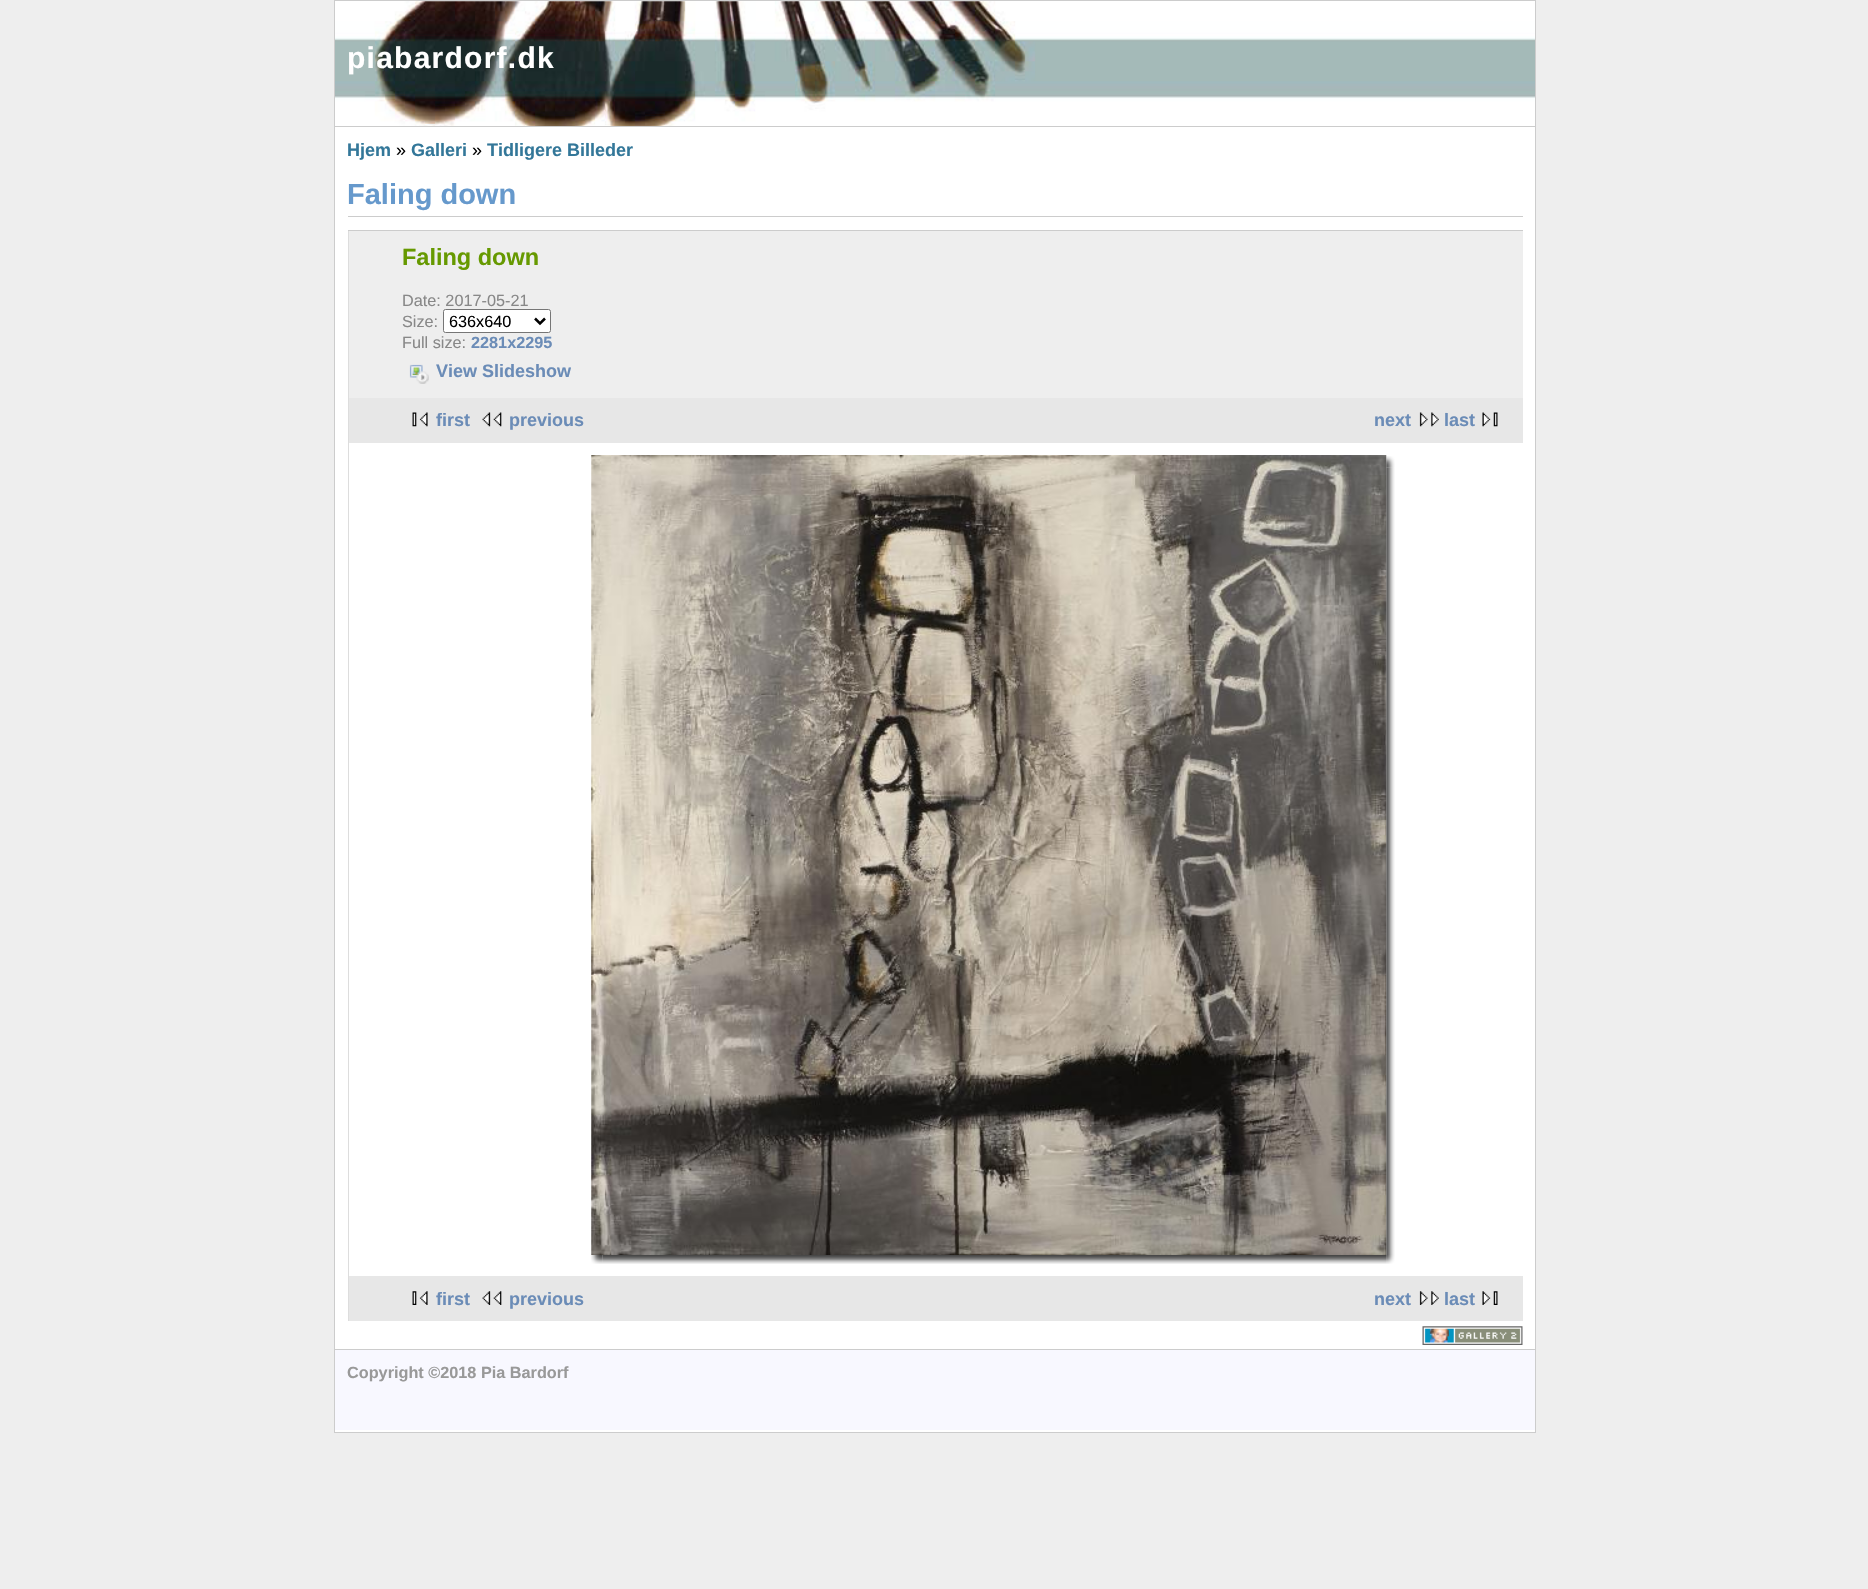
#include "include/core/SkBlurTypes.h"
#include "include/core/SkCanvas.h"
#include "include/core/SkData.h"
#include "include/core/SkFont.h"
#include "include/core/SkFontMgr.h"
#include "include/core/SkImage.h"
#include "include/core/SkMaskFilter.h"
#include "include/core/SkPaint.h"
#include "include/core/SkPathBuilder.h"
#include "include/core/SkTextBlob.h"
#include "include/effects/SkDashPathEffect.h"
#include "include/effects/SkGradientShader.h"
#include "include/utils/SkParsePath.h"

extern sk_sp<SkFontMgr> fontMgr;

static SkFont font(const char* family, int weight, float size, bool italic = false) {
    SkFontStyle style(weight, SkFontStyle::kNormal_Width,
        italic ? SkFontStyle::kItalic_Slant : SkFontStyle::kUpright_Slant);
    SkFont result(fontMgr->matchFamilyStyle(family, style), size);
    result.setSubpixel(true);
    return result;
}

static void drawLabel(SkCanvas* canvas, const char* s, float x, float y, const SkFont& font, SkColor color) {
    SkPaint ink(SkColor4f::FromColor(color));
    ink.setAntiAlias(true);
    canvas->drawString(s, x, y, font, ink);
}

static void drawTracked(SkCanvas* canvas, const char* s, float x, float y, const SkFont& font, const SkPaint& ink, float letter, float word) {
    std::vector<SkGlyphID> glyphs(font.countText(s, strlen(s), SkTextEncoding::kUTF8));
    std::vector<float> xs(glyphs.size());
    font.textToGlyphs(s, strlen(s), SkTextEncoding::kUTF8, glyphs);
    font.getXPos(glyphs, xs, x);
    float extra = 0;
    for (size_t i = 0; i < glyphs.size(); i++) {
        xs[i] += extra;
        extra += letter + word * (glyphs[i] == font.unicharToGlyph(' '));
    }
    canvas->drawTextBlob(SkTextBlob::MakeFromPosHGlyphs(glyphs, xs, y, font), 0, 0, ink);
}

static void fillRect(SkCanvas* canvas, float x, float y, float w, float h, SkColor color) {
    SkPaint ink(SkColor4f::FromColor(color));
    ink.setAntiAlias(true);
    canvas->drawRect(SkRect::MakeXYWH(x, y, w, h), ink);
}

static void drawPhoto(SkCanvas* canvas, const char* path, float x, float y, float w, float h) {
    auto image = SkImages::DeferredFromEncodedData(SkData::MakeFromFileName(path));
    canvas->drawImageRect(image, SkRect::MakeXYWH(x, y, w, h), SkSamplingOptions());
}

static SkPath parsePath(const char* data, bool evenOdd = false) {
    SkPath result = *SkParsePath::FromSVGString(data);
    if (evenOdd) result.setFillType(SkPathFillType::kEvenOdd);
    return result;
}

void draw(SkCanvas* canvas) {
    SkPaint paint;
    paint.setAntiAlias(true);
    canvas->clear(0xFFEEEEEE);
    paint.setColor(0xFFFFFFFF);
    canvas->drawRect(SkRect::MakeXYWH(334.5f, 0.5f, 1201, 1432), paint);
    paint.setStroke(true);
    paint.setStrokeWidth(1);
    paint.setColor(0xFFCCCCCC);
    canvas->drawRect(SkRect::MakeXYWH(334.5f, 0.5f, 1201, 1432), paint);
    drawPhoto(canvas, "assets/img1.png", 335, 1, 1200, 125);
    fillRect(canvas, 335, 126, 1200, 1, 0xFFCCCCCC);
    SkFont font1 = font("Liberation Sans", 700, 30);
    paint.setStroke(false);
    paint.setColor(0xFFFFFFFF);
    drawTracked(canvas, "piabardorf.dk", 347, 68, font1, paint, 1.25f, 0);
    SkFont font2 = font("Liberation Sans", 700, 18);
    drawLabel(canvas, "Hjem", 347, 156, font2, 0xFF337799);
    SkFont font3 = font("Liberation Sans", 400, 18);
    drawLabel(canvas, "»", 396, 156, font3, 0xFF000000);
    drawLabel(canvas, "Galleri", 411, 156, font2, 0xFF337799);
    drawLabel(canvas, "»", 472, 156, font3, 0xFF000000);
    drawLabel(canvas, "Tidligere Billeder", 487, 156, font2, 0xFF337799);
    SkFont font4 = font("Liberation Sans", 700, 29);
    drawLabel(canvas, "Faling down", 347, 204, font4, 0xFF6699CC);
    fillRect(canvas, 348, 216, 1175, 1, 0xFFCCCCCC);
    fillRect(canvas, 348, 230, 1175, 1, 0xFFCCCCCC);
    fillRect(canvas, 348, 231, 1, 1090, 0xFFDDDDDD);
    fillRect(canvas, 349, 231, 1174, 167, 0xFFEEEEEE);
    SkFont font5 = font("Liberation Sans", 700, 23.5f);
    drawLabel(canvas, "Faling down", 402, 265, font5, 0xFF669900);
    SkFont font6 = font("Liberation Sans", 400, 16.25f);
    drawLabel(canvas, "Date: 2017-05-21", 402, 306, font6, 0xFF888888);
    drawLabel(canvas, "Size:", 402, 327, font6, 0xFF888888);
    canvas->drawRoundRect(SkRect::MakeXYWH(443.5f, 309.5f, 107, 23), 2, 2, paint);
    paint.setStroke(true);
    paint.setColor(0xFF767676);
    canvas->drawRoundRect(SkRect::MakeXYWH(443.5f, 309.5f, 107, 23), 2, 2, paint);
    paint.setStrokeWidth(2.5f);
    paint.setColor(0xFF000000);
    canvas->drawPath(parsePath("M535 318.5L540 323.5L545 318.5"), paint);
    drawLabel(canvas, "636x640", 449, 327, font6, 0xFF000000);
    drawLabel(canvas, "Full size:", 402, 348, font6, 0xFF888888);
    SkFont font7 = font("Liberation Sans", 700, 16.25f);
    drawLabel(canvas, "2281x2295", 471, 348, font7, 0xFF6B8CB7);
    drawPhoto(canvas, "assets/img2.png", 409, 364, 20, 20);
    drawLabel(canvas, "View Slideshow", 436, 377, font2, 0xFF6B8CB7);
    fillRect(canvas, 349, 398, 1174, 45, 0xFFE7E7E7);
    drawPhoto(canvas, "assets/img3.png", 412, 412, 16, 15);
    drawLabel(canvas, "first", 436, 426, font2, 0xFF6B8CB7);
    drawPhoto(canvas, "assets/img4.png", 482, 412, 20, 15);
    drawLabel(canvas, "previous", 509, 426, font2, 0xFF6B8CB7);
    drawLabel(canvas, "next", 1374, 426, font2, 0xFF6B8CB7);
    drawPhoto(canvas, "assets/img5.png", 1419, 412, 20, 15);
    drawLabel(canvas, "last", 1444, 426, font2, 0xFF6B8CB7);
    drawPhoto(canvas, "assets/img6.png", 1482, 412, 16, 15);
    drawPhoto(canvas, "assets/img8.png", 1386, 456, 9, 12);
    drawPhoto(canvas, "assets/img9.png", 1386, 467, 9, 788);
    drawPhoto(canvas, "assets/img7.png", 591, 455, 796, 800);
    drawPhoto(canvas, "assets/img10.png", 591, 1255, 12, 9);
    drawPhoto(canvas, "assets/img11.png", 602, 1255, 785, 9);
    drawPhoto(canvas, "assets/img12.png", 1386, 1255, 9, 9);
    fillRect(canvas, 349, 1276, 1174, 45, 0xFFE7E7E7);
    drawPhoto(canvas, "assets/img13.png", 412, 1291, 16, 14);
    drawLabel(canvas, "first", 436, 1305, font2, 0xFF6B8CB7);
    drawPhoto(canvas, "assets/img14.png", 482, 1291, 20, 14);
    drawLabel(canvas, "previous", 509, 1305, font2, 0xFF6B8CB7);
    drawLabel(canvas, "next", 1374, 1305, font2, 0xFF6B8CB7);
    drawPhoto(canvas, "assets/img15.png", 1419, 1291, 20, 14);
    drawLabel(canvas, "last", 1444, 1305, font2, 0xFF6B8CB7);
    drawPhoto(canvas, "assets/img16.png", 1482, 1291, 16, 14);
    drawPhoto(canvas, "assets/img17.png", 1422, 1326, 101, 19);
    fillRect(canvas, 335, 1350, 1200, 80, 0xFFF8F8FF);
    fillRect(canvas, 335, 1349, 1200, 1, 0xFFCCCCCC);
    drawLabel(canvas, "Copyright ©2018 Pia Bardorf", 347, 1378, font7, 0xFF999999);
}
